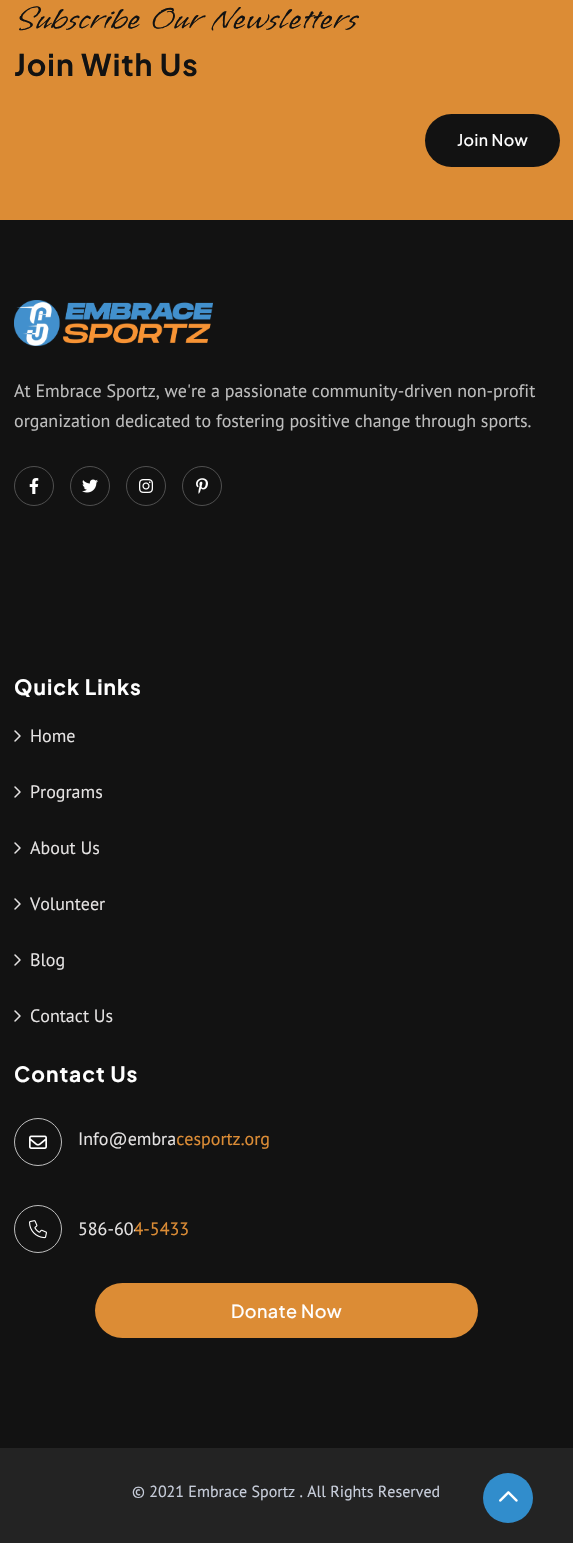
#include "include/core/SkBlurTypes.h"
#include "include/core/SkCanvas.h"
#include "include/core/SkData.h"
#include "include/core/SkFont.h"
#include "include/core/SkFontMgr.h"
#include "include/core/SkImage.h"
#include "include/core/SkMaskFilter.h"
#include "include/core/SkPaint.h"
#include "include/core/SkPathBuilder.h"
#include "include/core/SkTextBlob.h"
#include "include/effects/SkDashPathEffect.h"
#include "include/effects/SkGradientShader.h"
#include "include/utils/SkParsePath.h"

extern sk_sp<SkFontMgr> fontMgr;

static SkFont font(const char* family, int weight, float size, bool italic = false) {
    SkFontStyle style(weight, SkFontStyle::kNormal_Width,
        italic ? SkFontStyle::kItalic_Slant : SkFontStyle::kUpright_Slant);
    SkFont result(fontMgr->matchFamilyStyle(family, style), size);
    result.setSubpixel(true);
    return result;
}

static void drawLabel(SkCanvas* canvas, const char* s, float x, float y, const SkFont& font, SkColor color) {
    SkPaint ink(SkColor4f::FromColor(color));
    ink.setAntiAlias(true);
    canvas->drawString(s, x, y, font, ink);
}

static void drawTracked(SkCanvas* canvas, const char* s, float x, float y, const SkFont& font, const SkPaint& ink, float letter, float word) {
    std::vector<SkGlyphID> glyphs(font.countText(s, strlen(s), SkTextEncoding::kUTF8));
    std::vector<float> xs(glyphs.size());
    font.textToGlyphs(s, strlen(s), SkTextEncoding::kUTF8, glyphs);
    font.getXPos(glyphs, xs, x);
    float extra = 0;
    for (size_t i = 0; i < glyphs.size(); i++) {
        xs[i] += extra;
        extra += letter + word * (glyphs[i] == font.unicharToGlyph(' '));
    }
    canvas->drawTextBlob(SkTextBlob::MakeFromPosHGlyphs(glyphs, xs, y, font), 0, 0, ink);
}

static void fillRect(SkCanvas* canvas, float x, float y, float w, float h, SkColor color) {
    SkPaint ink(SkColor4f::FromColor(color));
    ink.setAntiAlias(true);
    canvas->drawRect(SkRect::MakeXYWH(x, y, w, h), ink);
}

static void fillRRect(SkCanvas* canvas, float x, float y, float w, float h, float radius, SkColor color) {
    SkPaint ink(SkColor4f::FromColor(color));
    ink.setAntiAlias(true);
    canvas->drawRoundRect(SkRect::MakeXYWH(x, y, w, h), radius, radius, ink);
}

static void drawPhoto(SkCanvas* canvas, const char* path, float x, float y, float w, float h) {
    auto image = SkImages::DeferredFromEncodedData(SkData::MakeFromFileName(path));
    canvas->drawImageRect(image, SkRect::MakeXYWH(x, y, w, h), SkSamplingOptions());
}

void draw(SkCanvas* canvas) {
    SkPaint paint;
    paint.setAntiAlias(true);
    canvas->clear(0xFFDC8C35);
    SkFont font1 = font("Vujahday Script", 400, 32);
    paint.setColor(0xFF121212);
    drawTracked(canvas, "Subscribe Our Newsletters", 14, 28, font1, paint, 0.6f, 0);
    SkFont font2 = font("Plus Jakarta Sans", 700, 30);
    drawTracked(canvas, "Join With Us", 14, 76, font2, paint, 1, 0);
    fillRRect(canvas, 425, 114, 135, 53, 26.5f, 0xFF121212);
    SkFont font3 = font("Plus Jakarta Sans", 500, 16);
    paint.setColor(0xFFFFFFFF);
    drawTracked(canvas, "Join Now", 457, 146, font3, paint, 0.4f, 0);
    fillRect(canvas, 0, 220, 573, 1228, 0xFF121212);
    drawPhoto(canvas, "assets/img1.png", 14, 300, 199, 46);
    SkFont font4 = font("PT Sans", 400, 18);
    drawLabel(canvas, "At Embrace Sportz, we're a passionate community-driven non-profit", 14, 397, font4, 0xFFBDBDBD);
    drawLabel(canvas, "organization dedicated to fostering positive change through sports.", 14, 427, font4, 0xFFBDBDBD);
    paint.setStroke(true);
    paint.setStrokeWidth(1);
    paint.setColor(0xFF4F4F4F);
    canvas->drawCircle(34, 486, 19.5f, paint);
    drawPhoto(canvas, "assets/img2.png", 29, 478, 10, 16);
    canvas->drawCircle(90, 486, 19.5f, paint);
    drawPhoto(canvas, "assets/img3.png", 82, 479, 16, 14);
    canvas->drawCircle(146, 486, 19.5f, paint);
    drawPhoto(canvas, "assets/img4.png", 139, 479, 14, 14);
    canvas->drawCircle(202, 486, 19.5f, paint);
    drawPhoto(canvas, "assets/img5.png", 196, 478, 12, 16);
    SkFont font5 = font("Plus Jakarta Sans", 700, 21);
    paint.setStroke(false);
    paint.setColor(0xFFFFFFFF);
    drawTracked(canvas, "Quick Links", 14, 695, font5, paint, 1, 0);
    drawPhoto(canvas, "assets/img6.png", 14, 730, 7, 12);
    {
        const SkColor colors[] = {0xFFE4E2E2, 0xFFDC8C35, 0xFFDC8C35};
        const float stops[] = {0.5f, 0.5f, 1};
        const SkPoint ends[] = {{14, 736}, {560, 736}};
        paint.setShader(SkGradientShader::MakeLinear(ends, colors, stops, 3, SkTileMode::kClamp));
        paint.setAlpha(255);
    }
    canvas->drawString("Home", 30, 742, font4, paint);
    drawPhoto(canvas, "assets/img6.png", 14, 786, 7, 12);
    {
        const SkColor colors[] = {0xFFE4E2E2, 0xFFDC8C35, 0xFFDC8C35};
        const float stops[] = {0.5f, 0.5f, 1};
        const SkPoint ends[] = {{14, 792}, {560, 792}};
        paint.setShader(SkGradientShader::MakeLinear(ends, colors, stops, 3, SkTileMode::kClamp));
        paint.setAlpha(255);
    }
    canvas->drawString("Programs", 30, 798, font4, paint);
    drawPhoto(canvas, "assets/img6.png", 14, 842, 7, 12);
    {
        const SkColor colors[] = {0xFFE4E2E2, 0xFFDC8C35, 0xFFDC8C35};
        const float stops[] = {0.5f, 0.5f, 1};
        const SkPoint ends[] = {{14, 848}, {560, 848}};
        paint.setShader(SkGradientShader::MakeLinear(ends, colors, stops, 3, SkTileMode::kClamp));
        paint.setAlpha(255);
    }
    canvas->drawString("About Us", 30, 854, font4, paint);
    drawPhoto(canvas, "assets/img6.png", 14, 898, 7, 12);
    {
        const SkColor colors[] = {0xFFE4E2E2, 0xFFDC8C35, 0xFFDC8C35};
        const float stops[] = {0.5f, 0.5f, 1};
        const SkPoint ends[] = {{14, 904}, {560, 904}};
        paint.setShader(SkGradientShader::MakeLinear(ends, colors, stops, 3, SkTileMode::kClamp));
        paint.setAlpha(255);
    }
    canvas->drawString("Volunteer", 30, 910, font4, paint);
    drawPhoto(canvas, "assets/img6.png", 14, 954, 7, 12);
    {
        const SkColor colors[] = {0xFFE4E2E2, 0xFFDC8C35, 0xFFDC8C35};
        const float stops[] = {0.5f, 0.5f, 1};
        const SkPoint ends[] = {{14, 960}, {560, 960}};
        paint.setShader(SkGradientShader::MakeLinear(ends, colors, stops, 3, SkTileMode::kClamp));
        paint.setAlpha(255);
    }
    canvas->drawString("Blog", 30, 966, font4, paint);
    drawPhoto(canvas, "assets/img6.png", 14, 1010, 7, 12);
    {
        const SkColor colors[] = {0xFFE4E2E2, 0xFFDC8C35, 0xFFDC8C35};
        const float stops[] = {0.5f, 0.5f, 1};
        const SkPoint ends[] = {{14, 1016}, {560, 1016}};
        paint.setShader(SkGradientShader::MakeLinear(ends, colors, stops, 3, SkTileMode::kClamp));
        paint.setAlpha(255);
    }
    canvas->drawString("Contact Us", 30, 1022, font4, paint);
    paint.setShader(nullptr);
    paint.setColor(0xFFFFFFFF);
    drawTracked(canvas, "Contact Us", 14, 1082, font5, paint, 1, 0);
    paint.setStroke(true);
    paint.setColor(0xFFBDBDBD);
    canvas->drawCircle(38, 1142, 23.5f, paint);
    drawPhoto(canvas, "assets/img7.png", 29, 1135, 18, 14);
    paint.setStroke(false);
    {
        const SkColor colors[] = {0xFFE4E2E2, 0xFFDC8C35, 0xFFDC8C35};
        const float stops[] = {0.5f, 0.5f, 1};
        const SkPoint ends[] = {{80, 1139}, {269, 1139}};
        paint.setShader(SkGradientShader::MakeLinear(ends, colors, stops, 3, SkTileMode::kClamp));
        paint.setAlpha(255);
    }
    canvas->drawString("Info@embracesportz.org", 78, 1145, font4, paint);
    paint.setStroke(true);
    paint.setShader(nullptr);
    paint.setColor(0xFFBDBDBD);
    canvas->drawCircle(38, 1229, 23.5f, paint);
    drawPhoto(canvas, "assets/img8.png", 29, 1220, 18, 19);
    paint.setStroke(false);
    {
        const SkColor colors[] = {0xFFE4E2E2, 0xFFDC8C35, 0xFFDC8C35};
        const float stops[] = {0.5f, 0.5f, 1};
        const SkPoint ends[] = {{80, 1229}, {189, 1229}};
        paint.setShader(SkGradientShader::MakeLinear(ends, colors, stops, 3, SkTileMode::kClamp));
        paint.setAlpha(255);
    }
    canvas->drawString("586-604-5433", 78, 1235, font4, paint);
    fillRRect(canvas, 95, 1283, 383, 55, 27.5f, 0xFFDC8C35);
    SkFont font6 = font("Plus Jakarta Sans", 500, 18);
    paint.setShader(nullptr);
    paint.setColor(0xFFFFFFFF);
    drawTracked(canvas, "Donate Now", 231, 1318, font6, paint, 0.4f, 0);
    fillRect(canvas, 0, 1448, 573, 95, 0xFF232323);
    SkFont font7 = font("PT Sans", 400, 16);
    drawLabel(canvas, "© 2021 Embrace Sportz . All Rights Reserved", 132, 1497, font7, 0xFFC7CDDA);
    paint.setColor(0xFF318DCC);
    canvas->drawCircle(508, 1498, 25, paint);
    drawPhoto(canvas, "assets/img9.png", 499, 1491, 19, 11);
}
